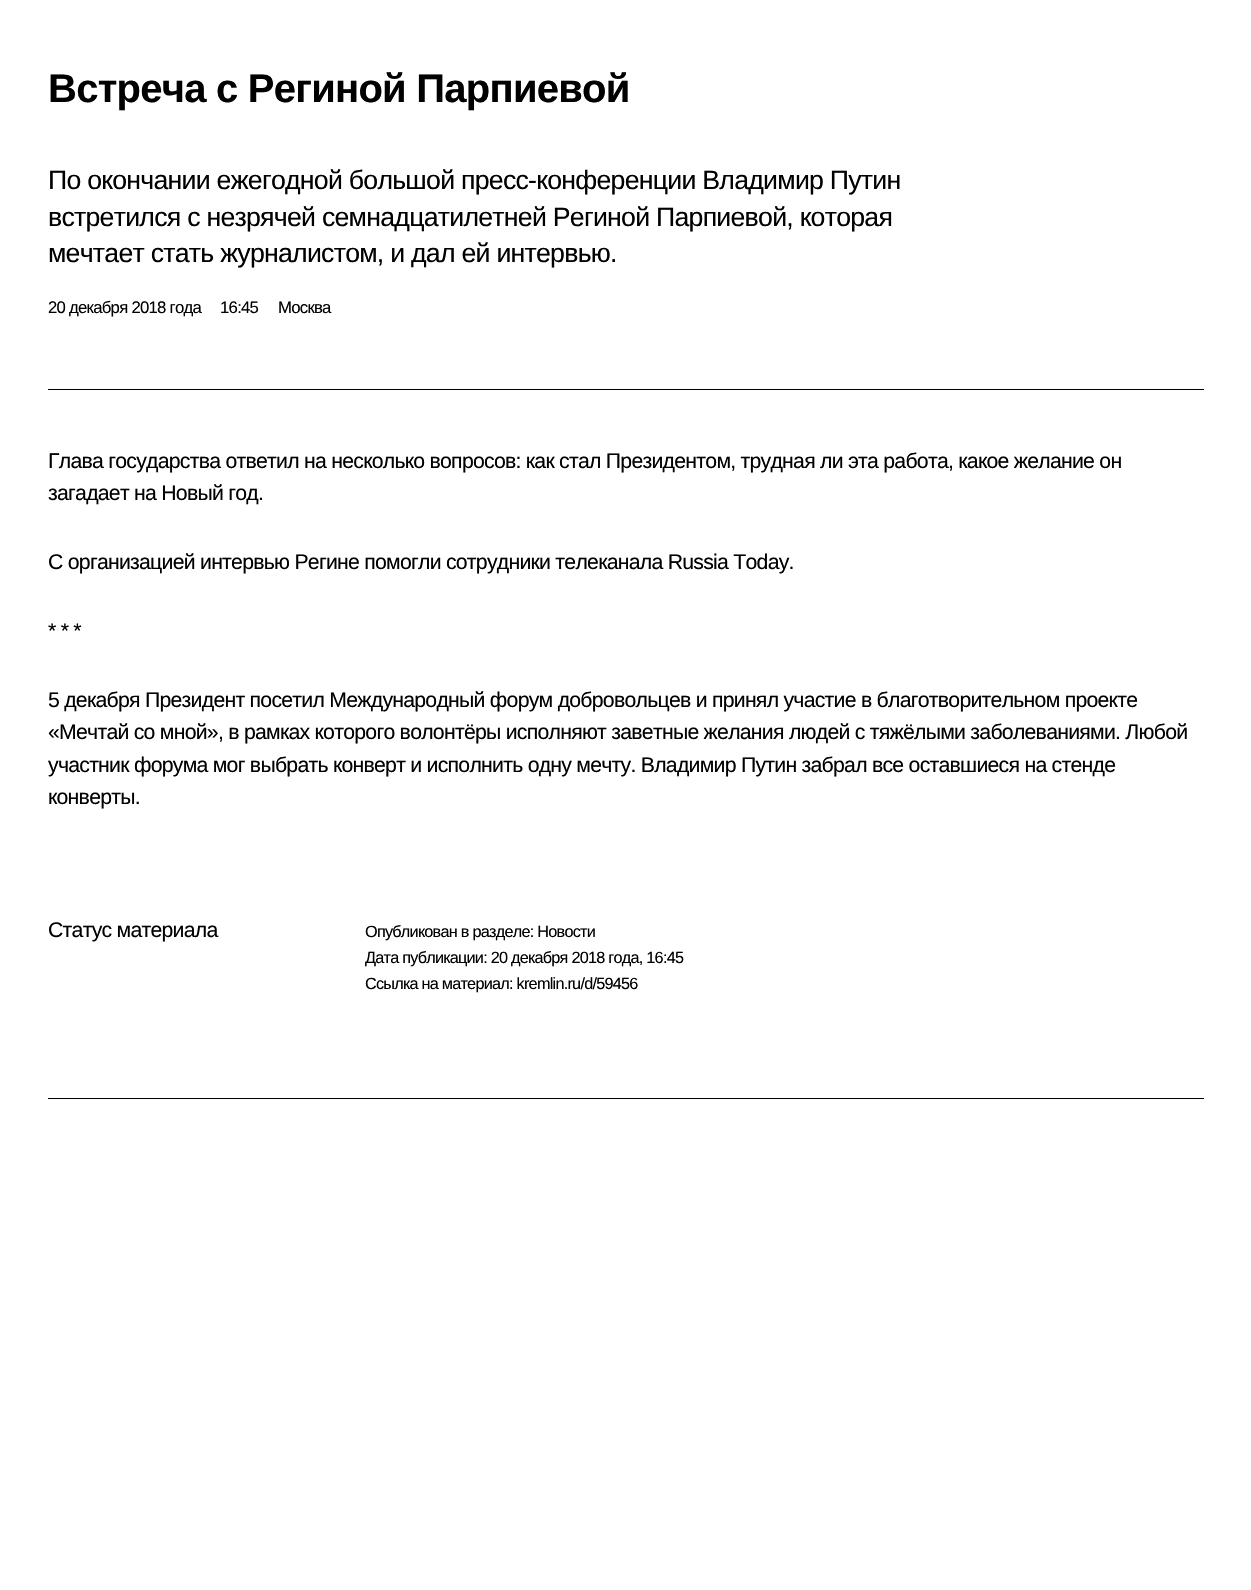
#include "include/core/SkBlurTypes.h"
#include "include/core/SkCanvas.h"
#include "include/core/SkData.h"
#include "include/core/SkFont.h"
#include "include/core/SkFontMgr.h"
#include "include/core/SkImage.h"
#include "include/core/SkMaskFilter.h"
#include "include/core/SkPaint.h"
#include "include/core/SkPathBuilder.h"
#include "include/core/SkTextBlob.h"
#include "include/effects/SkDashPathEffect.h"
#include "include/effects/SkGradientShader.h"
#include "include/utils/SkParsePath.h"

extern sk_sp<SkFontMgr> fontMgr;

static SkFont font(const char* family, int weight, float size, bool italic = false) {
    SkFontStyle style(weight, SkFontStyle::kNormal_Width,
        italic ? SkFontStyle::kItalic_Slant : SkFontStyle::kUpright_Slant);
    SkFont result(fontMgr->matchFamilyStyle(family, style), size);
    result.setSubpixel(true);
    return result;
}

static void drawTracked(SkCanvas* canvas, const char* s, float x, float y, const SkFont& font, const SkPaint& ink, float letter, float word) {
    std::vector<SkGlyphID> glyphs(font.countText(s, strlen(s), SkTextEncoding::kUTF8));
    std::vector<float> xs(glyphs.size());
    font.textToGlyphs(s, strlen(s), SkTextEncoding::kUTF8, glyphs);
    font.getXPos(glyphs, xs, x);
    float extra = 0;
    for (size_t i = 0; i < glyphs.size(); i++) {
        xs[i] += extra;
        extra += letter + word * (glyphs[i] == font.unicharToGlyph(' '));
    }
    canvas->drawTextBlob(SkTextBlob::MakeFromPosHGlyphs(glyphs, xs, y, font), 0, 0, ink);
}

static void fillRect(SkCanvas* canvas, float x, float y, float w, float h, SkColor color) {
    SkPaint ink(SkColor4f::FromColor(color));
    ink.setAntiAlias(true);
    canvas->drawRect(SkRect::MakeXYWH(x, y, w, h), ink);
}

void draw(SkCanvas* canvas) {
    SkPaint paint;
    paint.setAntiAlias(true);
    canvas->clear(0xFFFFFFFF);
    fillRect(canvas, 48, 1098, 1156, 1, 0xFF000000);
    fillRect(canvas, 48, 389, 1156, 1, 0xFF000000);
    SkFont font1 = font("Liberation Sans", 700, 40);
    paint.setColor(0xFF000000);
    drawTracked(canvas, "Встреча с Региной Парпиевой", 48, 102, font1, paint, -0.75f, 0);
    SkFont font2 = font("Liberation Sans", 400, 26.7f);
    drawTracked(canvas, "По окончании ежегодной большой пресс-конференции Владимир Путин", 48, 189, font2, paint, -0.75f, 0);
    drawTracked(canvas, "встретился с незрячей семнадцатилетней Региной Парпиевой, которая", 48, 226, font2, paint, -0.75f, 0);
    drawTracked(canvas, "мечтает стать журналистом, и дал ей интервью.", 48, 262, font2, paint, -0.75f, 0);
    SkFont font3 = font("Liberation Sans", 400, 16.75f);
    drawTracked(canvas, "20 декабря 2018 года", 48, 313, font3, paint, -0.75f, 0);
    drawTracked(canvas, "16:45", 220, 313, font3, paint, -0.75f, 0);
    drawTracked(canvas, "Москва", 278, 313, font3, paint, -0.75f, 0);
    SkFont font4 = font("Liberation Sans", 400, 21.25f);
    drawTracked(canvas, "Глава государства ответил на несколько вопросов: как стал Президентом, трудная ли эта работа, какое желание он", 48, 468, font4, paint, -0.75f, 0);
    drawTracked(canvas, "загадает на Новый год.", 48, 500, font4, paint, -0.75f, 0);
    drawTracked(canvas, "С организацией интервью Регине помогли сотрудники телеканала Russia Today.", 48, 569, font4, paint, -0.75f, 0);
    drawTracked(canvas, "* * *", 48, 638, font4, paint, -0.75f, 0);
    drawTracked(canvas, "5 декабря Президент посетил Международный форум добровольцев и принял участие в благотворительном проекте", 48, 707, font4, paint, -0.75f, 0);
    drawTracked(canvas, "«Мечтай со мной», в рамках которого волонтёры исполняют заветные желания людей с тяжёлыми заболеваниями. Любой", 48, 739, font4, paint, -0.75f, 0);
    drawTracked(canvas, "участник форума мог выбрать конверт и исполнить одну мечту. Владимир Путин забрал все оставшиеся на стенде", 48, 772, font4, paint, -0.75f, 0);
    drawTracked(canvas, "конверты.", 48, 804, font4, paint, -0.75f, 0);
    drawTracked(canvas, "Статус материала", 48, 937, font4, paint, -0.75f, 0);
    SkFont font5 = font("Liberation Sans", 400, 16.25f);
    drawTracked(canvas, "Опубликован в разделе: Новости", 365, 937, font5, paint, -0.75f, 0);
    drawTracked(canvas, "Дата публикации: 20 декабря 2018 года, 16:45", 365, 963, font5, paint, -0.75f, 0);
    drawTracked(canvas, "Ссылка на материал: kremlin.ru/d/59456", 365, 989, font5, paint, -0.75f, 0);
}
